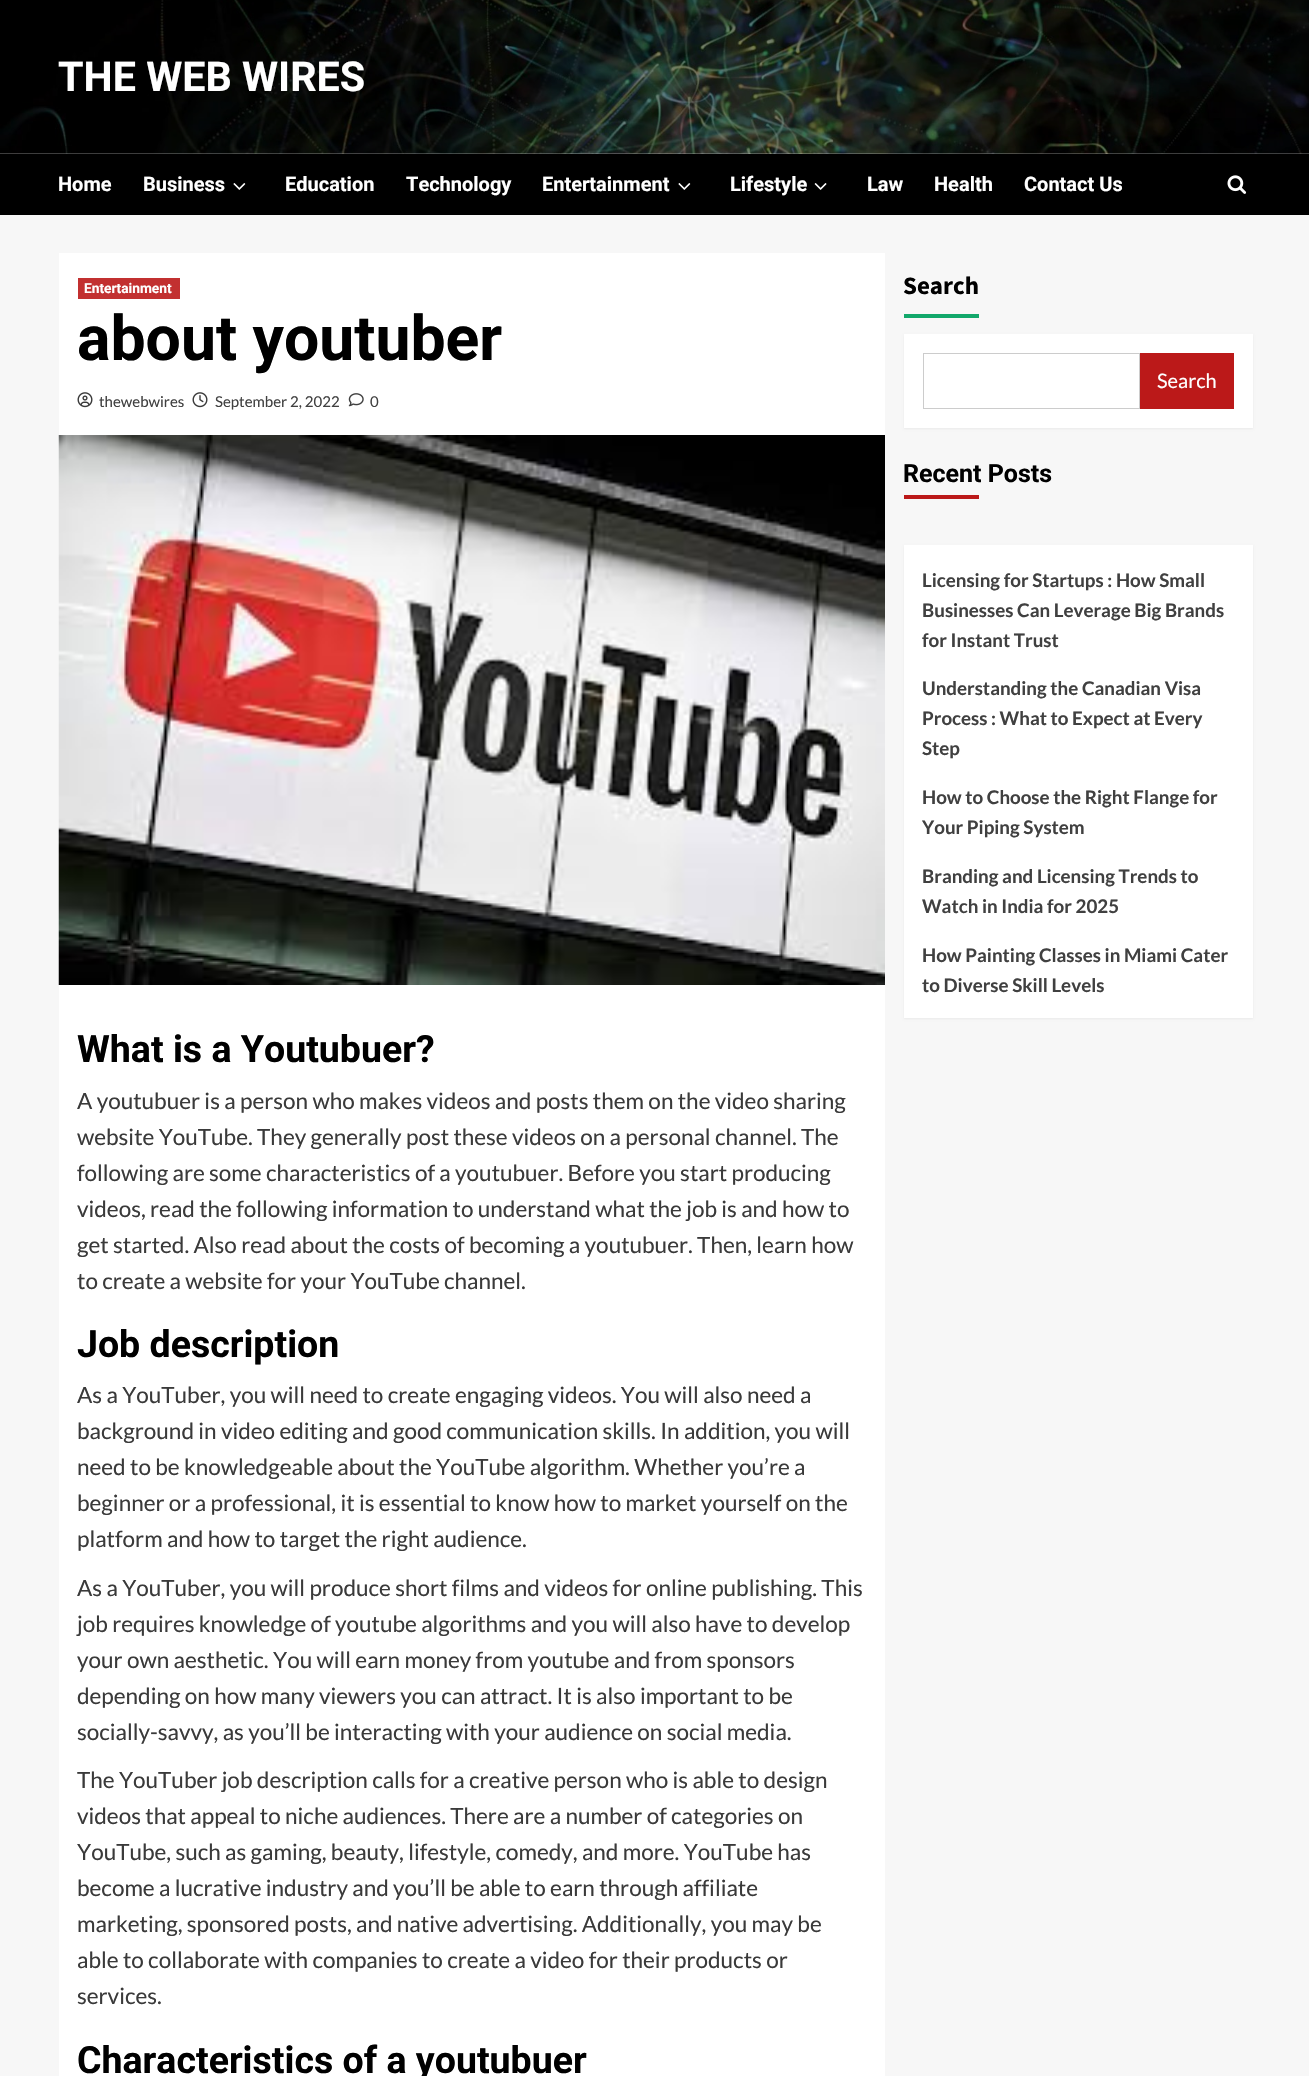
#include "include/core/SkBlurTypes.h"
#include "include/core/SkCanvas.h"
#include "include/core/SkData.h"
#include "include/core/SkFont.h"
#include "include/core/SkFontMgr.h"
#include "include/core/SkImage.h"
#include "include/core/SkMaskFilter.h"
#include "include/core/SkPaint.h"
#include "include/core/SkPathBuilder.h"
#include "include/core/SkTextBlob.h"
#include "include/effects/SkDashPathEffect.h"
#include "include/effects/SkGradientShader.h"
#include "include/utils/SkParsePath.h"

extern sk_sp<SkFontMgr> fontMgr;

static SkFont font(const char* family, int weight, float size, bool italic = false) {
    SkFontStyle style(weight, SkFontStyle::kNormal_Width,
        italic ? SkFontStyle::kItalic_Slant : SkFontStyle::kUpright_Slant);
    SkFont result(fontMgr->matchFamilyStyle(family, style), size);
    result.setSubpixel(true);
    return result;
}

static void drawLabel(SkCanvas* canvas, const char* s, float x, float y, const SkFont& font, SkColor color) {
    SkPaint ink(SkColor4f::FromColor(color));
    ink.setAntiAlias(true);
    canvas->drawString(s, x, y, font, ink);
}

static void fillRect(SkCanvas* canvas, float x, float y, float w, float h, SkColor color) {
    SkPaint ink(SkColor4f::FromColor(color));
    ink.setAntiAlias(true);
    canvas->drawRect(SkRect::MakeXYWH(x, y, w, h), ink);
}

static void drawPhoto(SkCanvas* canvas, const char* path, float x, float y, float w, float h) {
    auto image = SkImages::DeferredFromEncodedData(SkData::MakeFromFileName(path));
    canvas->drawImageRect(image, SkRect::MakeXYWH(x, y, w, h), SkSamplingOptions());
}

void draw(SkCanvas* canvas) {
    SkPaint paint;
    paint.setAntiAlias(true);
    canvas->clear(0xFFF7F7F7);
    drawPhoto(canvas, "assets/img1.png", 0, 0, 1309, 154);
    SkFont font1 = font("Roboto", 700, 41.25f);
    drawLabel(canvas, "THE WEB WIRES", 58, 91, font1, 0xFFFFFFFF);
    fillRect(canvas, 0, 154, 1309, 61, 0xFF000000);
    SkFont font2 = font("Roboto", 700, 20);
    drawLabel(canvas, "Home", 58, 191, font2, 0xFFFFFFFF);
    drawLabel(canvas, "Business", 143, 191, font2, 0xFFFFFFFF);
    drawPhoto(canvas, "assets/img2.png", 233, 183, 13, 7);
    drawLabel(canvas, "Education", 285, 191, font2, 0xFFFFFFFF);
    drawLabel(canvas, "Technology", 406, 191, font2, 0xFFFFFFFF);
    drawLabel(canvas, "Entertainment", 542, 191, font2, 0xFFFFFFFF);
    drawPhoto(canvas, "assets/img2.png", 678, 183, 13, 7);
    drawLabel(canvas, "Lifestyle", 730, 191, font2, 0xFFFFFFFF);
    drawPhoto(canvas, "assets/img3.png", 814, 183, 13, 7);
    drawLabel(canvas, "Law", 867, 191, font2, 0xFFFFFFFF);
    drawLabel(canvas, "Health", 934, 191, font2, 0xFFFFFFFF);
    drawLabel(canvas, "Contact Us", 1024, 191, font2, 0xFFFFFFFF);
    drawPhoto(canvas, "assets/img4.png", 1227, 175, 20, 19);
    fillRect(canvas, 59, 253, 826, 1823, 0xFFFFFFFF);
    fillRect(canvas, 78, 278, 102, 21, 0xFFC23030);
    SkFont font3 = font("Roboto", 700, 13.75f);
    drawLabel(canvas, "Entertainment", 84, 293, font3, 0xFFFFFFFF);
    SkFont font4 = font("Roboto", 700, 62.5f);
    drawLabel(canvas, "about youtuber", 77, 360, font4, 0xFF000000);
    drawPhoto(canvas, "assets/img5.png", 77, 392, 16, 16);
    SkFont font5 = font("Lato", 400, 15);
    drawLabel(canvas, "thewebwires", 99, 407, font5, 0xFF404040);
    drawPhoto(canvas, "assets/img6.png", 192, 392, 16, 16);
    drawLabel(canvas, "September 2, 2022", 215, 407, font5, 0xFF404040);
    drawPhoto(canvas, "assets/img7.png", 348, 393, 16, 14);
    drawLabel(canvas, "0", 370, 407, font5, 0xFF404040);
    drawPhoto(canvas, "assets/img8.png", 58, 435, 827, 550);
    SkFont font6 = font("Roboto", 700, 37.5f);
    drawLabel(canvas, "What is a Youtubuer?", 77, 1062, font6, 0xFF000000);
    SkFont font7 = font("Lato", 400, 22.5f);
    drawLabel(canvas, "A youtubuer is a person who makes videos and posts them on the video sharing", 77, 1109, font7, 0xFF3A3A3A);
    drawLabel(canvas, "website YouTube. They generally post these videos on a personal channel. The", 77, 1145, font7, 0xFF3A3A3A);
    drawLabel(canvas, "following are some characteristics of a youtubuer. Before you start producing", 77, 1181, font7, 0xFF3A3A3A);
    drawLabel(canvas, "videos, read the following information to understand what the job is and how to", 77, 1217, font7, 0xFF3A3A3A);
    drawLabel(canvas, "get started. Also read about the costs of becoming a youtubuer. Then, learn how", 77, 1253, font7, 0xFF3A3A3A);
    drawLabel(canvas, "to create a website for your YouTube channel.", 77, 1289, font7, 0xFF3A3A3A);
    drawLabel(canvas, "Job description", 77, 1357, font6, 0xFF000000);
    drawLabel(canvas, "As a YouTuber, you will need to create engaging videos. You will also need a", 77, 1403, font7, 0xFF3A3A3A);
    drawLabel(canvas, "background in video editing and good communication skills. In addition, you will", 77, 1439, font7, 0xFF3A3A3A);
    drawLabel(canvas, "need to be knowledgeable about the YouTube algorithm. Whether you’re a", 77, 1475, font7, 0xFF3A3A3A);
    drawLabel(canvas, "beginner or a professional, it is essential to know how to market yourself on the", 77, 1511, font7, 0xFF3A3A3A);
    drawLabel(canvas, "platform and how to target the right audience.", 77, 1547, font7, 0xFF3A3A3A);
    drawLabel(canvas, "As a YouTuber, you will produce short films and videos for online publishing. This", 77, 1596, font7, 0xFF3A3A3A);
    drawLabel(canvas, "job requires knowledge of youtube algorithms and you will also have to develop", 77, 1632, font7, 0xFF3A3A3A);
    drawLabel(canvas, "your own aesthetic. You will earn money from youtube and from sponsors", 77, 1668, font7, 0xFF3A3A3A);
    drawLabel(canvas, "depending on how many viewers you can attract. It is also important to be", 77, 1704, font7, 0xFF3A3A3A);
    drawLabel(canvas, "socially-savvy, as you’ll be interacting with your audience on social media.", 77, 1740, font7, 0xFF3A3A3A);
    drawLabel(canvas, "The YouTuber job description calls for a creative person who is able to design", 77, 1788, font7, 0xFF3A3A3A);
    drawLabel(canvas, "videos that appeal to niche audiences. There are a number of categories on", 77, 1824, font7, 0xFF3A3A3A);
    drawLabel(canvas, "YouTube, such as gaming, beauty, lifestyle, comedy, and more. YouTube has", 77, 1860, font7, 0xFF3A3A3A);
    drawLabel(canvas, "become a lucrative industry and you’ll be able to earn through affiliate", 77, 1896, font7, 0xFF3A3A3A);
    drawLabel(canvas, "marketing, sponsored posts, and native advertising. Additionally, you may be", 77, 1932, font7, 0xFF3A3A3A);
    drawLabel(canvas, "able to collaborate with companies to create a video for their products or", 77, 1968, font7, 0xFF3A3A3A);
    drawLabel(canvas, "services.", 77, 2004, font7, 0xFF3A3A3A);
    drawLabel(canvas, "Characteristics of a youtubuer", 77, 2073, font6, 0xFF000000);
    SkFont font8 = font("Source Sans Pro", 700, 25);
    drawLabel(canvas, "Search", 903, 294, font8, 0xFF000000);
    fillRect(canvas, 904, 314, 75, 4, 0xFF12A86B);
    paint.setColor(0x0D000000);
    paint.setMaskFilter(SkMaskFilter::MakeBlur(kNormal_SkBlurStyle, 1));
    canvas->drawRect(SkRect::MakeXYWH(904, 335, 349, 94), paint);
    paint.setMaskFilter(nullptr);
    fillRect(canvas, 904, 334, 349, 94, 0xFFFFFFFF);
    paint.setStroke(true);
    paint.setStrokeWidth(1);
    paint.setColor(0xFFCCCCCC);
    canvas->drawRect(SkRect::MakeXYWH(923.5f, 353.5f, 216, 55), paint);
    fillRect(canvas, 1140, 353, 94, 56, 0xFFBB1919);
    SkFont font9 = font("Lato", 400, 20);
    drawLabel(canvas, "Search", 1157, 388, font9, 0xFFFFFFFF);
    SkFont font10 = font("Roboto", 700, 25);
    drawLabel(canvas, "Recent Posts", 903, 482, font10, 0xFF000000);
    fillRect(canvas, 904, 495, 75, 4, 0xFFBB1919);
    paint.setStroke(false);
    paint.setColor(0x0D000000);
    paint.setMaskFilter(SkMaskFilter::MakeBlur(kNormal_SkBlurStyle, 1));
    canvas->drawRect(SkRect::MakeXYWH(904, 546, 349, 473), paint);
    paint.setMaskFilter(nullptr);
    fillRect(canvas, 904, 545, 349, 473, 0xFFFFFFFF);
    SkFont font11 = font("Lato", 700, 18.75f);
    drawLabel(canvas, "Licensing for Startups : How Small", 922, 587, font11, 0xFF404040);
    drawLabel(canvas, "Businesses Can Leverage Big Brands", 922, 617, font11, 0xFF404040);
    drawLabel(canvas, "for Instant Trust", 922, 647, font11, 0xFF404040);
    drawLabel(canvas, "Understanding the Canadian Visa", 922, 695, font11, 0xFF404040);
    drawLabel(canvas, "Process : What to Expect at Every", 922, 725, font11, 0xFF404040);
    drawLabel(canvas, "Step", 922, 755, font11, 0xFF404040);
    drawLabel(canvas, "How to Choose the Right Flange for", 922, 804, font11, 0xFF404040);
    drawLabel(canvas, "Your Piping System", 922, 834, font11, 0xFF404040);
    drawLabel(canvas, "Branding and Licensing Trends to", 922, 883, font11, 0xFF404040);
    drawLabel(canvas, "Watch in India for 2025", 922, 913, font11, 0xFF404040);
    drawLabel(canvas, "How Painting Classes in Miami Cater", 922, 962, font11, 0xFF404040);
    drawLabel(canvas, "to Diverse Skill Levels", 922, 992, font11, 0xFF404040);
}
